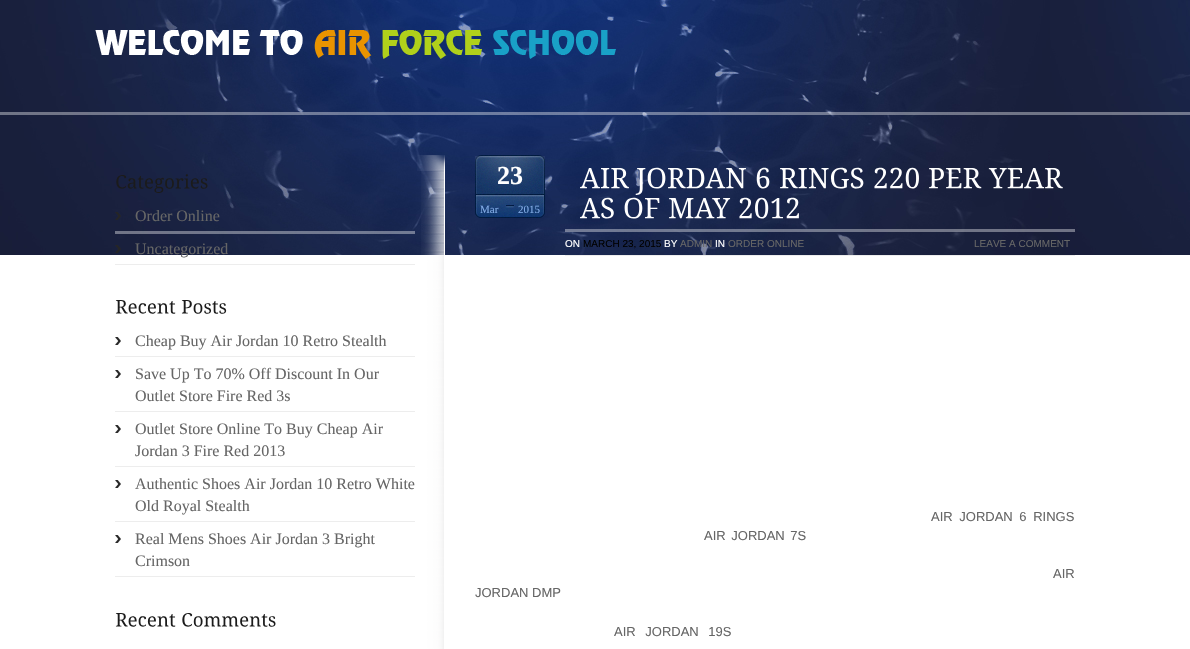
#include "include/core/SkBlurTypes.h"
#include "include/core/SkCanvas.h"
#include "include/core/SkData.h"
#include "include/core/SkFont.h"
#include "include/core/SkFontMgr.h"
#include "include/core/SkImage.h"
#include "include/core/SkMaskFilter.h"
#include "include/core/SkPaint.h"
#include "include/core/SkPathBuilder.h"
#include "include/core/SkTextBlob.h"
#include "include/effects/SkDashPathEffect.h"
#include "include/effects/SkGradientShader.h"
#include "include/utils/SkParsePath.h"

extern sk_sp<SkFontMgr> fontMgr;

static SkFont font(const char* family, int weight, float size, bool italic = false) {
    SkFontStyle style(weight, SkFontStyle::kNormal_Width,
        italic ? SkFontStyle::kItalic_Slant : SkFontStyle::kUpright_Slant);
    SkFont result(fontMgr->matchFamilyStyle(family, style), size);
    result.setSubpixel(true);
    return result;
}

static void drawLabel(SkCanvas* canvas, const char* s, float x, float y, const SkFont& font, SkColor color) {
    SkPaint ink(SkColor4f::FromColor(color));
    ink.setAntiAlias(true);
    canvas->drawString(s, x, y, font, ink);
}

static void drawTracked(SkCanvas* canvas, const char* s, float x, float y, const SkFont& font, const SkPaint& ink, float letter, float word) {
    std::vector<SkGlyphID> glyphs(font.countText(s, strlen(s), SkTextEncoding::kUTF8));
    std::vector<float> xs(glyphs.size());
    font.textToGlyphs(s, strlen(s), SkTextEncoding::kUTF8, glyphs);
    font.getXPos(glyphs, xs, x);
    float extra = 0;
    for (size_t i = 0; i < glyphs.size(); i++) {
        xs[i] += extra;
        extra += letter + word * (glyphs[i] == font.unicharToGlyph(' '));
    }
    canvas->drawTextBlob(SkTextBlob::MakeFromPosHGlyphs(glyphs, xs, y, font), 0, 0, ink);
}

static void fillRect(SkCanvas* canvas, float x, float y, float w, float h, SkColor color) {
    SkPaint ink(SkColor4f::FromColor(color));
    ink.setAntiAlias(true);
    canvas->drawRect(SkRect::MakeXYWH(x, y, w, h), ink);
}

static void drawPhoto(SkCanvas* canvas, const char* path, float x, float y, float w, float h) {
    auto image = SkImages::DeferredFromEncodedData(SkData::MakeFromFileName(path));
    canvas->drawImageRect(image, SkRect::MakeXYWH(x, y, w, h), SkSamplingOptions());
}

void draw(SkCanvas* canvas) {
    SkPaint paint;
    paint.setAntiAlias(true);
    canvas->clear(0xFFFFFFFF);
    drawPhoto(canvas, "assets/img1.png", 0, 0, 1190, 255);
    drawPhoto(canvas, "assets/img2.png", 95, 30, 521, 29);
    fillRect(canvas, 0, 112, 1190, 3, 0x61FFFFFF);
    drawPhoto(canvas, "assets/img3.png", 417, 155, 28, 16);
    drawPhoto(canvas, "assets/img4.png", 421, 171, 24, 478);
    drawPhoto(canvas, "assets/img5.png", 116, 174, 92, 19);
    fillRect(canvas, 115, 231, 300, 3, 0x61FFFFFF);
    drawPhoto(canvas, "assets/img6.png", 115, 212, 6, 8);
    SkFont font1 = font("Liberation Serif", 400, 16);
    drawLabel(canvas, "Order Online", 135, 221, font1, 0xFF666666);
    fillRect(canvas, 115, 264, 300, 1, 0xFFEDEDED);
    drawPhoto(canvas, "assets/img7.png", 115, 245, 6, 8);
    drawLabel(canvas, "Uncategorized", 135, 254, font1, 0xFF666666);
    drawPhoto(canvas, "assets/img8.png", 115, 300, 61, 14);
    drawPhoto(canvas, "assets/img9.png", 181, 300, 46, 14);
    fillRect(canvas, 115, 356, 300, 1, 0xFFEDEDED);
    drawPhoto(canvas, "assets/img10.png", 115, 337, 6, 8);
    drawLabel(canvas, "Cheap Buy Air Jordan 10 Retro Stealth", 135, 346, font1, 0xFF666666);
    fillRect(canvas, 115, 411, 300, 1, 0xFFEDEDED);
    drawPhoto(canvas, "assets/img10.png", 115, 370, 6, 8);
    drawLabel(canvas, "Save Up To 70% Off Discount In Our", 135, 379, font1, 0xFF666666);
    drawLabel(canvas, "Outlet Store Fire Red 3s", 135, 401, font1, 0xFF666666);
    fillRect(canvas, 115, 466, 300, 1, 0xFFEDEDED);
    drawPhoto(canvas, "assets/img10.png", 115, 425, 6, 8);
    drawLabel(canvas, "Outlet Store Online To Buy Cheap Air", 135, 434, font1, 0xFF666666);
    drawLabel(canvas, "Jordan 3 Fire Red 2013", 135, 456, font1, 0xFF666666);
    fillRect(canvas, 115, 521, 300, 1, 0xFFEDEDED);
    drawPhoto(canvas, "assets/img10.png", 115, 480, 6, 8);
    drawLabel(canvas, "Authentic Shoes Air Jordan 10 Retro White", 135, 489, font1, 0xFF666666);
    drawLabel(canvas, "Old Royal Stealth", 135, 511, font1, 0xFF666666);
    fillRect(canvas, 115, 576, 300, 1, 0xFFEDEDED);
    drawPhoto(canvas, "assets/img10.png", 115, 535, 6, 8);
    drawLabel(canvas, "Real Mens Shoes Air Jordan 3 Bright", 135, 544, font1, 0xFF666666);
    drawLabel(canvas, "Crimson", 135, 566, font1, 0xFF666666);
    drawPhoto(canvas, "assets/img8.png", 115, 613, 61, 14);
    drawPhoto(canvas, "assets/img11.png", 182, 613, 94, 14);
    drawPhoto(canvas, "assets/img12.png", 475, 155, 70, 63);
    SkFont font2 = font("Liberation Serif", 700, 26);
    drawLabel(canvas, "23", 497, 184, font2, 0xFFFFFFFF);
    SkFont font3 = font("Liberation Serif", 400, 11);
    drawLabel(canvas, "Mar", 480, 213, font3, 0xFF83ADE8);
    drawLabel(canvas, "2015", 518, 213, font3, 0xFF83ADE8);
    fillRect(canvas, 565, 229, 510, 3, 0x61FFFFFF);
    drawPhoto(canvas, "assets/img13.png", 580, 168, 49, 21);
    drawPhoto(canvas, "assets/img14.png", 635, 167, 111, 28);
    drawPhoto(canvas, "assets/img15.png", 756, 167, 14, 22);
    drawPhoto(canvas, "assets/img16.png", 780, 167, 84, 22);
    drawPhoto(canvas, "assets/img17.png", 874, 167, 45, 22);
    drawPhoto(canvas, "assets/img18.png", 929, 168, 53, 21);
    drawPhoto(canvas, "assets/img19.png", 988, 168, 75, 21);
    drawPhoto(canvas, "assets/img20.png", 580, 197, 34, 22);
    drawPhoto(canvas, "assets/img21.png", 624, 197, 36, 22);
    drawPhoto(canvas, "assets/img22.png", 669, 198, 62, 21);
    drawPhoto(canvas, "assets/img23.png", 739, 197, 60, 22);
    fillRect(canvas, 565, 255, 510, 1, 0xFFEDEDED);
    SkFont font4 = font("Liberation Sans", 400, 10);
    drawLabel(canvas, "ON", 565, 247, font4, 0xFFFFFFFF);
    drawLabel(canvas, "MARCH 23, 2015", 583, 247, font4, 0xFF000000);
    drawLabel(canvas, "BY", 664, 247, font4, 0xFFFFFFFF);
    drawLabel(canvas, "ADMIN", 680, 247, font4, 0xFF666666);
    drawLabel(canvas, "IN", 715, 247, font4, 0xFFFFFFFF);
    drawLabel(canvas, "ORDER ONLINE", 728, 247, font4, 0xFF666666);
    drawLabel(canvas, "LEAVE A COMMENT", 974, 247, font4, 0xFF666666);
    SkFont font5 = font("Liberation Sans", 400, 13);
    paint.setColor(0xFF666666);
    drawTracked(canvas, "AIR JORDAN 6 RINGS", 931, 521, font5, paint, 0, 3);
    drawTracked(canvas, "AIR JORDAN 7S", 704, 540, font5, paint, 0, 2);
    drawLabel(canvas, "AIR", 1053, 578, font5, 0xFF666666);
    drawLabel(canvas, "JORDAN DMP", 475, 597, font5, 0xFF666666);
    drawTracked(canvas, "AIR JORDAN 19S", 614, 636, font5, paint, 0, 6);
}
